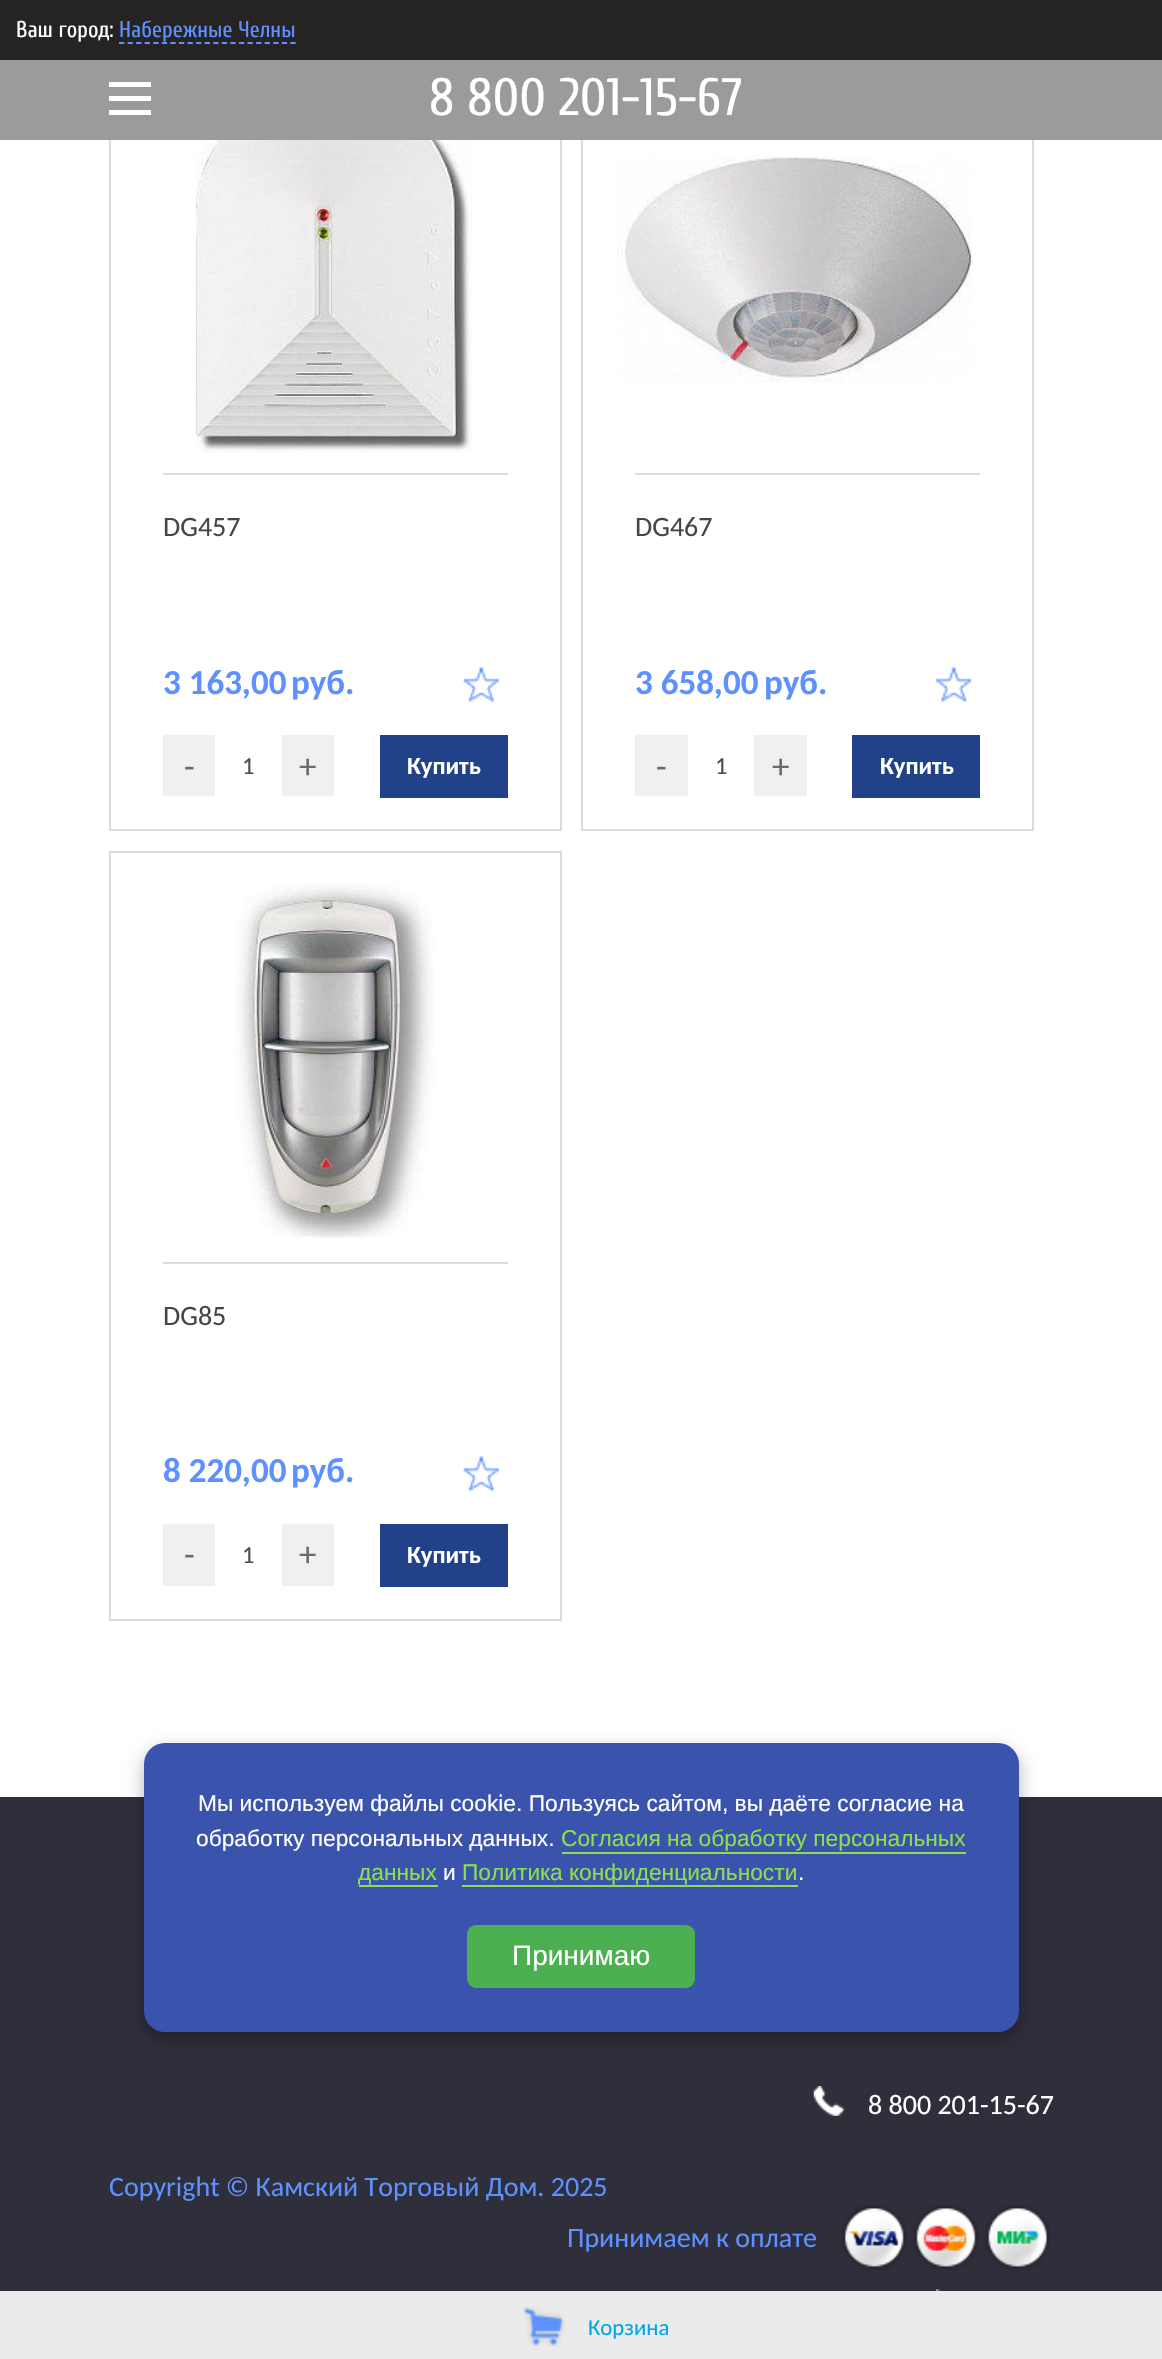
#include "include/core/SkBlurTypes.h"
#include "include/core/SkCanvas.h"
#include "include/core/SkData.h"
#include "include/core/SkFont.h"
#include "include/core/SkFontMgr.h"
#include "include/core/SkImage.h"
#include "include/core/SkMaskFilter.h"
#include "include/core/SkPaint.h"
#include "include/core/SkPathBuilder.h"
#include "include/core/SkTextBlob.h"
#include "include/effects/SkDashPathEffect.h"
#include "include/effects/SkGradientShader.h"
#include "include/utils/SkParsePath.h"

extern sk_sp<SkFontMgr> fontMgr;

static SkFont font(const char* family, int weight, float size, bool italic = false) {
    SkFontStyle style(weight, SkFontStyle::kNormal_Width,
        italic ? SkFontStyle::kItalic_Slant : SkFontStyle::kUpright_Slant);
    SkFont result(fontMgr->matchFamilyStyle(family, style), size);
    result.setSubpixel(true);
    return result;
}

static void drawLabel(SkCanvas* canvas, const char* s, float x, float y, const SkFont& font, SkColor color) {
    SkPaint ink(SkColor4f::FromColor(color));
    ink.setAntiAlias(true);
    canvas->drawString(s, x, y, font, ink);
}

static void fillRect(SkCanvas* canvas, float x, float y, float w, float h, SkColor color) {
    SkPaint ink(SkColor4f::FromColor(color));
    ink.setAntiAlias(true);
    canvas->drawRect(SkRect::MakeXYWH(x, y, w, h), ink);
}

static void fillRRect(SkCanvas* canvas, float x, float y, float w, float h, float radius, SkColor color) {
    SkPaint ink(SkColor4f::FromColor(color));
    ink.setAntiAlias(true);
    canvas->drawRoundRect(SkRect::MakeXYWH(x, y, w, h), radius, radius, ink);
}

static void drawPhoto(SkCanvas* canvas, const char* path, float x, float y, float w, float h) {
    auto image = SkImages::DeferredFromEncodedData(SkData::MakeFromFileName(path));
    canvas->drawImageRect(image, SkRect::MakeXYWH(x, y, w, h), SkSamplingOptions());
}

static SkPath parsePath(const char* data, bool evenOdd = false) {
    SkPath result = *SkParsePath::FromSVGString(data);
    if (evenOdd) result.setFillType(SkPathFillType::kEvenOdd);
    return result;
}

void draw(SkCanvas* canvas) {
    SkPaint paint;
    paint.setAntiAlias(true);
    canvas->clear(0xFFFFFFFF);
    paint.setStroke(true);
    paint.setStrokeWidth(2);
    paint.setColor(0xFFDBDBDB);
    canvas->drawRect(SkRect::MakeXYWH(110, 62, 451, 768), paint);
    canvas->drawRect(SkRect::MakeXYWH(582, 62, 451, 768), paint);
    fillRect(canvas, 0, 60, 1162, 80, 0xFF9B9B9B);
    fillRect(canvas, 0, 0, 1162, 60, 0xFF262323);
    SkFont font1 = font("Cuprum", 400, 22.75f);
    drawLabel(canvas, "Ваш город:", 16, 37, font1, 0xFFFFFFFF);
    drawLabel(canvas, "Набережные Челны", 119, 37, font1, 0xFF5E91FF);
    paint.setStrokeWidth(1.8f);
    paint.setColor(0xFF5E91FF);
    paint.setPathEffect(SkDashPathEffect::Make({{5.25f, 3.32f}}, 0));
    canvas->drawPath(parsePath("M119 43H296"), paint);
    paint.setPathEffect(nullptr);
    fillRect(canvas, 109, 82, 42, 5, 0xFFFFFFFF);
    fillRect(canvas, 109, 96, 42, 5, 0xFFFFFFFF);
    fillRect(canvas, 109, 110, 42, 5, 0xFFFFFFFF);
    SkFont font2 = font("Cuprum", 400, 52.5f);
    drawLabel(canvas, "8 800 201-15-67", 429, 115, font2, 0xFFFFFFFF);
    drawPhoto(canvas, "assets/img1.png", 196, 140, 276, 313);
    fillRect(canvas, 163, 473, 345, 2, 0xFFDBDBDB);
    SkFont font3 = font("Carlito", 400, 28);
    drawLabel(canvas, "DG457", 163, 536, font3, 0xFF46454B);
    SkFont font4 = font("Carlito", 700, 35);
    drawLabel(canvas, "3 163,00", 163, 694, font4, 0xFF5E91FF);
    drawLabel(canvas, "руб.", 291, 694, font4, 0xFF5E91FF);
    drawPhoto(canvas, "assets/img2.png", 463, 666, 36, 36);
    fillRect(canvas, 163, 735, 52, 61, 0xFFF0F0F0);
    SkFont font5 = font("Carlito", 400, 35);
    drawLabel(canvas, "-", 184, 778, font5, 0xFF6B6B6B);
    SkFont font6 = font("Carlito", 400, 24.5f);
    drawLabel(canvas, "1", 242, 774, font6, 0xFF4C4C52);
    fillRect(canvas, 282, 735, 52, 61, 0xFFF0F0F0);
    drawLabel(canvas, "+", 299, 778, font5, 0xFF6B6B6B);
    fillRect(canvas, 380, 735, 128, 63, 0xFF214288);
    SkFont font7 = font("Carlito", 700, 24.5f);
    drawLabel(canvas, "Купить", 407, 774, font7, 0xFFFFFFFF);
    drawPhoto(canvas, "assets/img3.png", 617, 156, 355, 227);
    fillRect(canvas, 635, 473, 345, 2, 0xFFDBDBDB);
    drawLabel(canvas, "DG467", 635, 536, font3, 0xFF46454B);
    drawLabel(canvas, "3 658,00", 635, 694, font4, 0xFF5E91FF);
    drawLabel(canvas, "руб.", 764, 694, font4, 0xFF5E91FF);
    drawPhoto(canvas, "assets/img4.png", 936, 666, 36, 36);
    fillRect(canvas, 635, 735, 53, 61, 0xFFF0F0F0);
    drawLabel(canvas, "-", 656, 778, font5, 0xFF6B6B6B);
    drawLabel(canvas, "1", 715, 774, font6, 0xFF4C4C52);
    fillRect(canvas, 754, 735, 53, 61, 0xFFF0F0F0);
    drawLabel(canvas, "+", 772, 778, font5, 0xFF6B6B6B);
    fillRect(canvas, 852, 735, 128, 63, 0xFF214288);
    drawLabel(canvas, "Купить", 880, 774, font7, 0xFFFFFFFF);
    paint.setStrokeWidth(2);
    paint.setColor(0xFFDBDBDB);
    canvas->drawRect(SkRect::MakeXYWH(110, 852, 451, 768), paint);
    drawPhoto(canvas, "assets/img5.png", 235, 883, 199, 355);
    fillRect(canvas, 163, 1262, 345, 2, 0xFFDBDBDB);
    drawLabel(canvas, "DG85", 163, 1325, font3, 0xFF46454B);
    drawLabel(canvas, "8 220,00", 163, 1482, font4, 0xFF5E91FF);
    drawLabel(canvas, "руб.", 291, 1482, font4, 0xFF5E91FF);
    drawPhoto(canvas, "assets/img6.png", 463, 1456, 36, 35);
    fillRect(canvas, 163, 1524, 52, 62, 0xFFF0F0F0);
    drawLabel(canvas, "-", 184, 1566, font5, 0xFF6B6B6B);
    drawLabel(canvas, "1", 242, 1563, font6, 0xFF4C4C52);
    fillRect(canvas, 282, 1524, 52, 62, 0xFFF0F0F0);
    drawLabel(canvas, "+", 299, 1566, font5, 0xFF6B6B6B);
    fillRect(canvas, 380, 1524, 128, 63, 0xFF214288);
    drawLabel(canvas, "Купить", 407, 1563, font7, 0xFFFFFFFF);
    fillRect(canvas, 0, 2291, 1162, 68, 0xFFEBEBEB);
    drawPhoto(canvas, "assets/img7.png", 523, 2306, 43, 41);
    SkFont font8 = font("Carlito", 400, 22.75f);
    drawLabel(canvas, "Корзина", 588, 2335, font8, 0xFF00A7E5);
    fillRect(canvas, 0, 1797, 1162, 494, 0xFF2F2E3B);
    paint.setStroke(false);
    paint.setColor(0x4D000000);
    paint.setMaskFilter(SkMaskFilter::MakeBlur(kNormal_SkBlurStyle, 9));
    canvas->drawRoundRect(SkRect::MakeXYWH(144, 1750, 875, 289), 21, 21, paint);
    paint.setMaskFilter(nullptr);
    fillRRect(canvas, 144, 1743, 875, 289, 21, 0xFF3A53AD);
    SkFont font9 = font("Liberation Sans", 400, 22.75f);
    drawLabel(canvas, "Мы используем файлы cookie. Пользуясь сайтом, вы даёте согласие на", 198, 1811, font9, 0xFFFFFFFF);
    drawLabel(canvas, "обработку персональных данных.", 196, 1846, font9, 0xFFFFFFFF);
    drawLabel(canvas, "Согласия на обработку персональных", 561, 1846, font9, 0xFF8BDF4E);
    fillRect(canvas, 562, 1852, 404, 2, 0xFF8BDF4E);
    drawLabel(canvas, "данных", 358, 1880, font9, 0xFF8BDF4E);
    fillRect(canvas, 359, 1885, 79, 2, 0xFF8BDF4E);
    drawLabel(canvas, "и", 443, 1880, font9, 0xFFFFFFFF);
    drawLabel(canvas, "Политика конфиденциальности", 462, 1880, font9, 0xFF8BDF4E);
    fillRect(canvas, 462, 1885, 336, 2, 0xFF8BDF4E);
    drawLabel(canvas, ".", 798, 1880, font9, 0xFFFFFFFF);
    fillRRect(canvas, 467, 1925, 228, 63, 9, 0xFF4CAF50);
    SkFont font10 = font("Liberation Sans", 400, 28);
    drawLabel(canvas, "Принимаю", 512, 1965, font10, 0xFFFFFFFF);
    drawPhoto(canvas, "assets/img8.png", 813, 2086, 31, 30);
    drawLabel(canvas, "8 800 201-15-67", 868, 2114, font3, 0xFFFFFFFF);
    drawLabel(canvas, "Copyright © Камский Торговый Дом. 2025", 109, 2196, font3, 0xFF5E91FF);
    drawLabel(canvas, "Принимаем к оплате", 567, 2247, font3, 0xFF5E91FF);
    drawPhoto(canvas, "assets/img9.png", 841, 2204, 66, 67);
    drawPhoto(canvas, "assets/img10.png", 913, 2204, 66, 67);
    drawPhoto(canvas, "assets/img11.png", 985, 2204, 66, 67);
    drawPhoto(canvas, "assets/img12.png", 936, 2289, 5, 2);
}
